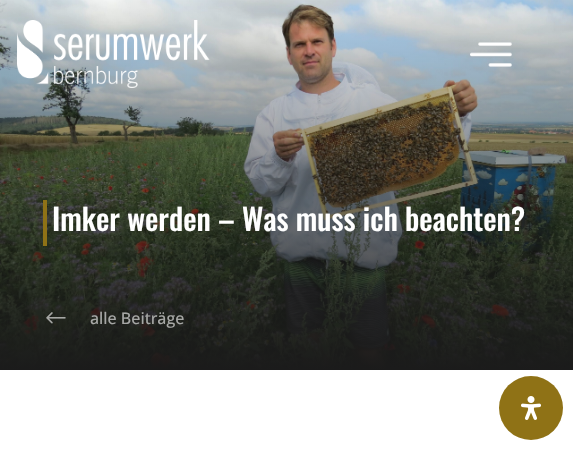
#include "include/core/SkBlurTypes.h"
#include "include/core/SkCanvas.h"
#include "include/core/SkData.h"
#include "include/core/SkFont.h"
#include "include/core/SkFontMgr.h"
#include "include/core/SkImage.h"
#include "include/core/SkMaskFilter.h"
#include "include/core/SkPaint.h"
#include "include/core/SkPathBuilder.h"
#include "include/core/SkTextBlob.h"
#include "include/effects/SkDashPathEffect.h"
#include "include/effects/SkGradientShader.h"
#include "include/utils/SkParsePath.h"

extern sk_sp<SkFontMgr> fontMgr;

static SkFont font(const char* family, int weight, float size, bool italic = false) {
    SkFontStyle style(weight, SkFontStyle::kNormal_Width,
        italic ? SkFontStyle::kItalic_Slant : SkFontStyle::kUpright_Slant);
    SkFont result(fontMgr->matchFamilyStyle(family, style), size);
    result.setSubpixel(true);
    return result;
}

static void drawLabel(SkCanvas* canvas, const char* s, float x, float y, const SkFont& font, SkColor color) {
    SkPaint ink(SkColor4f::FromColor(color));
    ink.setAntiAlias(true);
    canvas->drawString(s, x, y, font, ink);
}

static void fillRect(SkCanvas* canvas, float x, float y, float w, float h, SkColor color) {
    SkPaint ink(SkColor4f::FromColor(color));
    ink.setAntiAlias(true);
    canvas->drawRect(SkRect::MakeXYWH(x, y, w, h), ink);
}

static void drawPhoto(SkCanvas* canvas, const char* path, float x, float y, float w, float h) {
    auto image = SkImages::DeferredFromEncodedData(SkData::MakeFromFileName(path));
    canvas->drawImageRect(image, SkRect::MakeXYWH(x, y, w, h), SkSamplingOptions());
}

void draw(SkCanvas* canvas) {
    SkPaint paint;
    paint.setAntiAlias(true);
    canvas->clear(0xFFFFFFFF);
    drawPhoto(canvas, "assets/img3.png", 0, 0, 573, 370);
    drawPhoto(canvas, "assets/img1.png", 17, 20, 193, 68);
    drawPhoto(canvas, "assets/img2.png", 470, 42, 42, 25);
    fillRect(canvas, 43, 200, 4, 46, 0xFF8F7216);
    SkFont font1 = font("Oswald", 500, 30);
    drawLabel(canvas, "Imker werden – Was muss ich beachten?", 52, 231, font1, 0xFFFFFFFF);
    drawPhoto(canvas, "assets/img4.png", 46, 312, 20, 12);
    SkFont font2 = font("Open Sans", 500, 16);
    drawLabel(canvas, "alle Beiträge", 90, 324, font2, 0xFFA6A7A5);
    paint.setColor(0xFF8F7216);
    canvas->drawCircle(531, 408, 32, paint);
    drawPhoto(canvas, "assets/img5.png", 521, 396, 20, 24);
}
